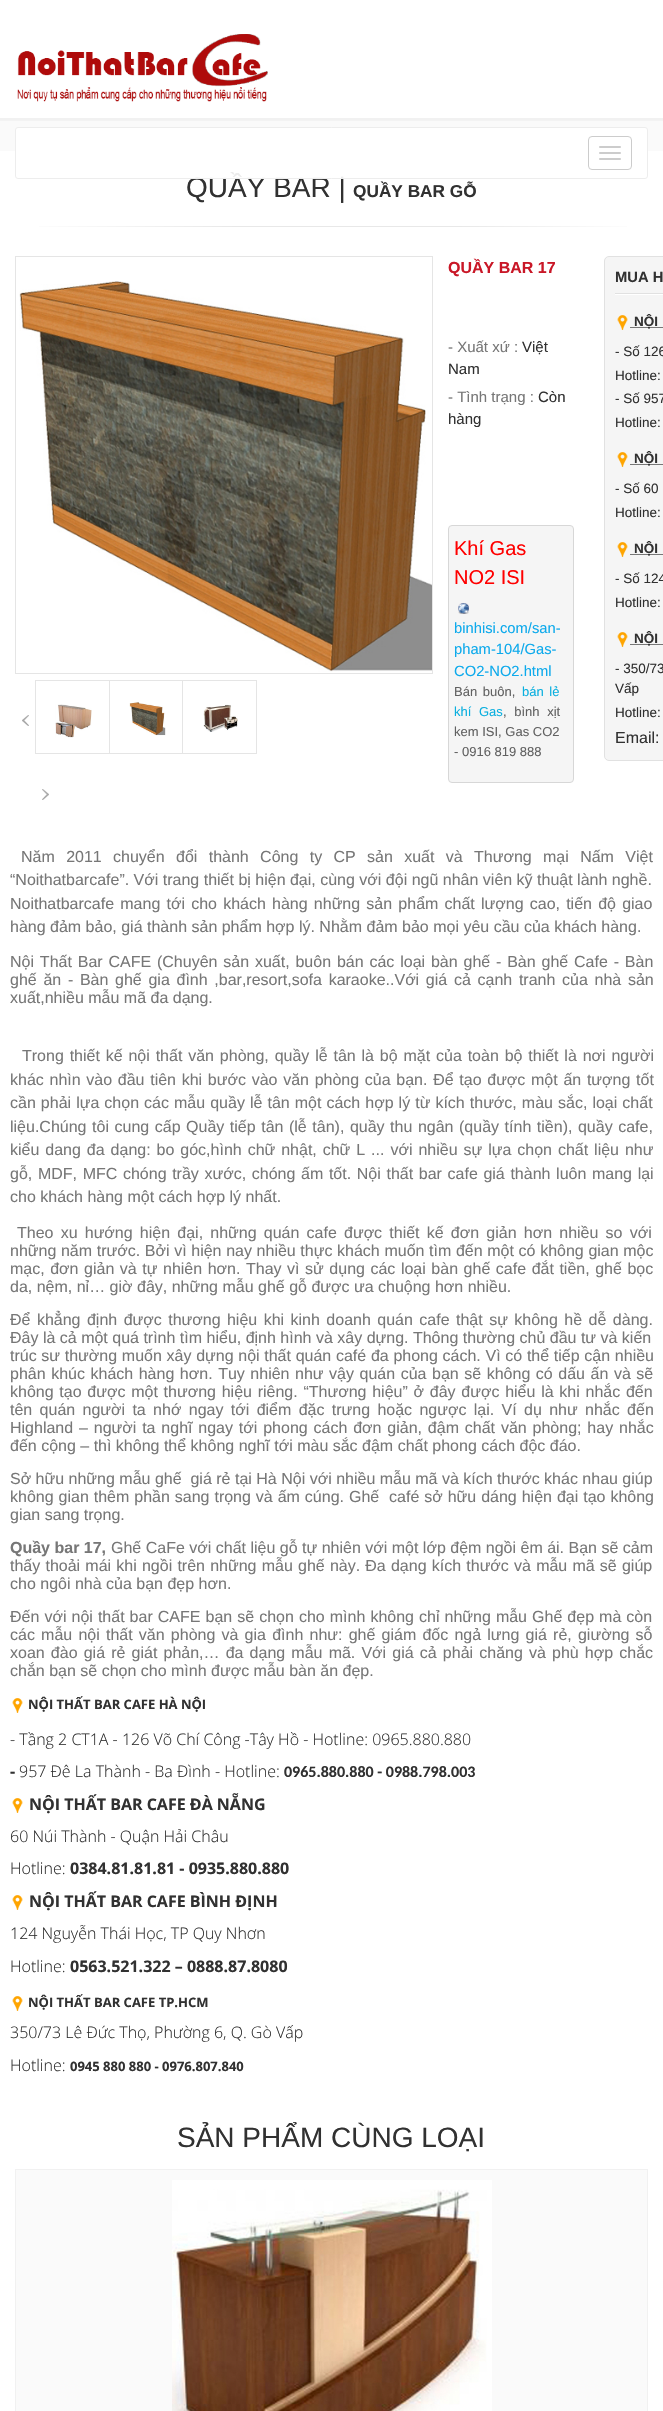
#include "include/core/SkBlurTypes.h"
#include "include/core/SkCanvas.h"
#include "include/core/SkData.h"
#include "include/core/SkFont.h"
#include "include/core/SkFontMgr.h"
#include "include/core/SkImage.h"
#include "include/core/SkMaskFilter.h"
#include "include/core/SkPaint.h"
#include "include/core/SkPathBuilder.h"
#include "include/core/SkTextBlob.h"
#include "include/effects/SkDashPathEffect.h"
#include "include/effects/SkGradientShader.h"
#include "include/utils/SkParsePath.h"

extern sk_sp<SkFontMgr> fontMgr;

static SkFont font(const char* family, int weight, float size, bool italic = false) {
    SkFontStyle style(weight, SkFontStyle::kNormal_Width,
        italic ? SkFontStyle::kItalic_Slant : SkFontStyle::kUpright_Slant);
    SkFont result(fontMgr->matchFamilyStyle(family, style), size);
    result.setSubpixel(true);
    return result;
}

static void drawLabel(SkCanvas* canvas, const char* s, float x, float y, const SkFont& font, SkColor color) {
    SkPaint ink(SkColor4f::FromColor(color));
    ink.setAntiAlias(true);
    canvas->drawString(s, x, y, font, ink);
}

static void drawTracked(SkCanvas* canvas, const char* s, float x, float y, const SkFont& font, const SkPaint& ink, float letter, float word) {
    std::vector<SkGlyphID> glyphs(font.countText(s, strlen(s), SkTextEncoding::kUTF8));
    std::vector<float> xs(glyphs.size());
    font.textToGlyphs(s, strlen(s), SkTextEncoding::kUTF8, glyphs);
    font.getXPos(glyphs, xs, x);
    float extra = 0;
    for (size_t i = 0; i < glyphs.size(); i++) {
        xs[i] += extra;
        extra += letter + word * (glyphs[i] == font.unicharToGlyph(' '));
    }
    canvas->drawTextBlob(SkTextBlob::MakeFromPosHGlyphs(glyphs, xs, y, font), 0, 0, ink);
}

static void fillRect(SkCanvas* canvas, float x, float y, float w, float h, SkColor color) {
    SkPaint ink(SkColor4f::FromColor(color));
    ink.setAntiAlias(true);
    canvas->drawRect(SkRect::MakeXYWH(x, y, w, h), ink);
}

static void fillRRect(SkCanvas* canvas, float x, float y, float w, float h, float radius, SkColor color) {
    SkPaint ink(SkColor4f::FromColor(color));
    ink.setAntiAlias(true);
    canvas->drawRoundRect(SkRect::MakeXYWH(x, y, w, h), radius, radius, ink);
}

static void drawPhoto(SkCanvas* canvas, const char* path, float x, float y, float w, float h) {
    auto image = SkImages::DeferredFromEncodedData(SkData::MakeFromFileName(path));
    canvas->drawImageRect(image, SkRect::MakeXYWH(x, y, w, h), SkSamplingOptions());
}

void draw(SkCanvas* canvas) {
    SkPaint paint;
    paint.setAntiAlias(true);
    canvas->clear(0xFFFFFFFF);
    fillRect(canvas, 0, 118, 663, 2, 0xFFF1F1F1);
    drawPhoto(canvas, "assets/img1.png", 17, 34, 251, 68);
    fillRect(canvas, 0, 121, 663, 30, 0xFFFAFAFA);
    SkFont font1 = font("Liberation Sans", 400, 28);
    drawLabel(canvas, "QUẦY BAR |", 186, 197, font1, 0xFF313131);
    paint.setColor(0xE6FFFFFF);
    canvas->drawRoundRect(SkRect::MakeXYWH(15.5f, 127.5f, 632, 51), 2.5f, 2.5f, paint);
    paint.setStroke(true);
    paint.setStrokeWidth(1);
    paint.setColor(0xFFEDEDED);
    canvas->drawRoundRect(SkRect::MakeXYWH(15.5f, 127.5f, 632, 51), 2.5f, 2.5f, paint);
    paint.setColor(0xFFCCCCCC);
    canvas->drawRoundRect(SkRect::MakeXYWH(588.5f, 136.5f, 43, 33), 3.5f, 3.5f, paint);
    fillRRect(canvas, 599, 146, 22, 2, 1, 0xFFCCCCCC);
    fillRRect(canvas, 599, 152, 22, 2, 1, 0xFFCCCCCC);
    fillRRect(canvas, 599, 158, 22, 2, 1, 0xFFCCCCCC);
    fillRect(canvas, 0, 120, 663, 1, 0xFFF3F3F3);
    SkFont font2 = font("Liberation Sans", 700, 17.25f);
    drawLabel(canvas, "QUẦY BAR GỖ", 353, 197, font2, 0xFF313131);
    paint.setStroke(false);
    {
        const SkColor colors[] = {0xFFFFFFFF, 0xFFE8E8E8, 0xFFE8E8E8, 0xFFFFFFFF};
        const float stops[] = {0, 0.35f, 0.7f, 1};
        const SkPoint ends[] = {{15, 227}, {648, 226}};
        paint.setShader(SkGradientShader::MakeLinear(ends, colors, stops, 4, SkTileMode::kClamp));
        paint.setAlpha(255);
    }
    canvas->drawRect(SkRect::MakeXYWH(39, 226, 588, 1), paint);
    paint.setStroke(true);
    paint.setShader(nullptr);
    paint.setColor(0xFFE5E5E5);
    canvas->drawRect(SkRect::MakeXYWH(15.5f, 256.5f, 417, 417), paint);
    drawPhoto(canvas, "assets/img2.png", 19, 281, 413, 391);
    drawPhoto(canvas, "assets/img3.png", 22, 715, 7, 11);
    fillRect(canvas, 182, 680, 75, 1, 0xFFE5E5E5);
    fillRect(canvas, 256, 680, 1, 74, 0xFFE5E5E5);
    fillRect(canvas, 182, 753, 75, 1, 0xFFE5E5E5);
    fillRect(canvas, 182, 680, 1, 74, 0xFFE5E5E5);
    fillRect(canvas, 109, 680, 74, 1, 0xFFE5E5E5);
    fillRect(canvas, 109, 753, 74, 1, 0xFFE5E5E5);
    fillRect(canvas, 109, 680, 1, 74, 0xFFE5E5E5);
    fillRect(canvas, 35, 680, 75, 1, 0xFFE5E5E5);
    fillRect(canvas, 35, 753, 75, 1, 0xFFE5E5E5);
    fillRect(canvas, 35, 680, 1, 74, 0xFFE5E5E5);
    drawPhoto(canvas, "assets/img4.png", 55, 704, 37, 34);
    drawPhoto(canvas, "assets/img5.png", 129, 702, 37, 34);
    drawPhoto(canvas, "assets/img6.png", 203, 704, 35, 28);
    drawPhoto(canvas, "assets/img7.png", 42, 789, 7, 11);
    SkFont font3 = font("Liberation Sans", 700, 16);
    drawLabel(canvas, "QUẦY BAR 17", 448, 273, font3, 0xFFC91727);
    SkFont font4 = font("Liberation Sans", 400, 15);
    drawLabel(canvas, "- Xuất xứ :", 448, 352, font4, 0xFF777777);
    drawLabel(canvas, "Việt", 522, 352, font4, 0xFF313131);
    drawLabel(canvas, "Nam", 448, 374, font4, 0xFF313131);
    drawLabel(canvas, "- Tình trạng :", 448, 402, font4, 0xFF777777);
    drawLabel(canvas, "Còn", 538, 402, font4, 0xFF313131);
    drawLabel(canvas, "hàng", 448, 424, font4, 0xFF313131);
    paint.setStroke(false);
    paint.setColor(0xFFF5F5F5);
    canvas->drawRoundRect(SkRect::MakeXYWH(448.5f, 525.5f, 125, 257), 3.5f, 3.5f, paint);
    paint.setStroke(true);
    paint.setColor(0xFFD7D7D7);
    canvas->drawRoundRect(SkRect::MakeXYWH(448.5f, 525.5f, 125, 257), 3.5f, 3.5f, paint);
    SkFont font5 = font("Liberation Sans", 400, 20);
    drawLabel(canvas, "Khí Gas", 454, 555, font5, 0xFFFF0000);
    drawLabel(canvas, "NO2 ISI", 454, 584, font5, 0xFFFF0000);
    drawPhoto(canvas, "assets/img8.png", 458, 603, 11, 11);
    SkFont font6 = font("Liberation Sans", 400, 14.75f);
    drawLabel(canvas, "binhisi.com/san-", 454, 633, font6, 0xFF0DAAEC);
    drawLabel(canvas, "pham-104/Gas-", 454, 654, font6, 0xFF0DAAEC);
    drawLabel(canvas, "CO2-NO2.html", 454, 676, font6, 0xFF0DAAEC);
    SkFont font7 = font("Liberation Sans", 400, 13);
    paint.setStroke(false);
    paint.setColor(0xFF616161);
    drawTracked(canvas, "Bán buôn,", 454, 696, font7, paint, 0, 2);
    paint.setColor(0xFF09AFDF);
    drawTracked(canvas, "bán lẻ", 522, 696, font7, paint, 0, 2);
    drawTracked(canvas, "khí Gas", 454, 716, font7, paint, 0, 4);
    paint.setColor(0xFF616161);
    drawTracked(canvas, ", bình xịt", 503, 716, font7, paint, 0, 4);
    drawLabel(canvas, "kem ISI, Gas CO2", 454, 736, font7, 0xFF616161);
    drawLabel(canvas, "- 0916 819 888", 454, 756, font7, 0xFF616161);
    paint.setColor(0xFFF5F5F5);
    canvas->drawRoundRect(SkRect::MakeXYWH(604.5f, 256.5f, 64, 504), 4.5f, 4.5f, paint);
    paint.setStroke(true);
    paint.setColor(0xFFE1E1E1);
    canvas->drawRoundRect(SkRect::MakeXYWH(604.5f, 256.5f, 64, 504), 4.5f, 4.5f, paint);
    SkFont font8 = font("Liberation Sans", 700, 14.75f);
    drawLabel(canvas, "MUA H", 615, 282, font8, 0xFF313131);
    fillRect(canvas, 615, 293, 48, 1, 0xFFE1E1E1);
    fillRect(canvas, 615, 294, 48, 1, 0xFFFFFFFF);
    drawPhoto(canvas, "assets/img9.png", 617, 315, 11, 15);
    fillRect(canvas, 630, 327, 33, 1, 0xFF777777);
    SkFont font9 = font("Liberation Sans", 700, 13.5f);
    drawLabel(canvas, "NỘI", 634, 326, font9, 0xFF313131);
    SkFont font10 = font("Liberation Sans", 400, 13.5f);
    drawLabel(canvas, "- Số 126", 615, 356, font10, 0xFF313131);
    drawLabel(canvas, "Hotline:", 615, 380, font10, 0xFF313131);
    drawLabel(canvas, "- Số 957", 615, 403, font10, 0xFF313131);
    drawLabel(canvas, "Hotline:", 615, 427, font10, 0xFF313131);
    drawPhoto(canvas, "assets/img9.png", 617, 452, 11, 15);
    fillRect(canvas, 630, 464, 33, 1, 0xFF777777);
    drawLabel(canvas, "NỘI", 634, 463, font9, 0xFF313131);
    drawLabel(canvas, "- Số 60", 615, 493, font10, 0xFF313131);
    drawLabel(canvas, "Hotline:", 615, 517, font10, 0xFF313131);
    drawPhoto(canvas, "assets/img9.png", 617, 542, 11, 15);
    fillRect(canvas, 630, 554, 33, 1, 0xFF777777);
    drawLabel(canvas, "NỘI", 634, 553, font9, 0xFF313131);
    drawLabel(canvas, "- Số 124", 615, 583, font10, 0xFF313131);
    drawLabel(canvas, "Hotline:", 615, 607, font10, 0xFF313131);
    drawPhoto(canvas, "assets/img9.png", 617, 632, 11, 15);
    fillRect(canvas, 630, 644, 33, 1, 0xFF777777);
    drawLabel(canvas, "NỘI", 634, 643, font9, 0xFF313131);
    drawLabel(canvas, "- 350/73", 615, 673, font10, 0xFF313131);
    drawLabel(canvas, "Vấp", 615, 693, font10, 0xFF313131);
    drawLabel(canvas, "Hotline:", 615, 717, font10, 0xFF313131);
    SkFont font11 = font("Liberation Sans", 400, 16);
    drawLabel(canvas, "Email:", 615, 743, font11, 0xFF313131);
    paint.setStroke(false);
    paint.setColor(0xFF777777);
    drawTracked(canvas, "Năm 2011 chuyển đổi thành Công ty CP sản xuất và Thương mại Nấm Việt", 21, 862, font11, paint, 0, 6.9f);
    drawLabel(canvas, "“Noithatbarcafe”. Với trang thiết bị hiện đại, cùng với đội ngũ nhân viên kỹ thuật lành nghề.", 10, 885, font11, 0xFF777777);
    drawTracked(canvas, "Noithatbarcafe mang tới cho khách hàng những sản phẩm chất lượng cao, tiến độ giao", 10, 909, font11, paint, 0, 1.75f);
    drawLabel(canvas, "hàng đảm bảo, giá thành sản phẩm hợp lý. Nhằm đảm bảo mọi yêu cầu của khách hàng.", 10, 932, font11, 0xFF777777);
    drawTracked(canvas, "Nội Thất Bar CAFE (Chuyên sản xuất, buôn bán các loại bàn ghế - Bàn ghế Cafe - Bàn", 10, 967, font11, paint, 0, 1.4f);
    drawTracked(canvas, "ghế ăn - Bàn ghế gia đình ,bar,resort,sofa karaoke..Với giá cả cạnh tranh của nhà sản", 10, 985, font11, paint, 0, 2.25f);
    drawLabel(canvas, "xuất,nhiều mẫu mã đa dạng.", 10, 1003, font11, 0xFF777777);
    drawTracked(canvas, "Trong thiết kế nội thất văn phòng, quầy lễ tân là bộ mặt của toàn bộ thiết là nơi người", 22, 1061, font11, paint, 0, 1.4f);
    drawTracked(canvas, "khác nhìn vào đầu tiên khi bước vào văn phòng của bạn. Để tạo được một ấn tượng tốt", 10, 1085, font11, paint, 0, 1.25f);
    drawTracked(canvas, "cần phải lựa chọn các mẫu quầy lễ tân một cách hợp lý từ kích thước, màu sắc, loại chất", 10, 1108, font11, paint, 0, 0.6f);
    drawTracked(canvas, "liệu.Chúng tôi cung cấp Quầy tiếp tân (lễ tân), quầy thu ngân (quầy tính tiền), quầy cafe,", 10, 1132, font11, paint, 0, 1.1f);
    drawTracked(canvas, "kiểu dang đa dạng: bo góc,hình chữ nhật, chữ L ... với nhiều sự lựa chọn chất liệu như", 10, 1155, font11, paint, 0, 1.5f);
    drawTracked(canvas, "gỗ, MDF, MFC chóng trầy xước, chóng ấm tốt. Nội thất bar cafe giá thành luôn mang lại", 10, 1179, font11, paint, 0, 1.2f);
    drawLabel(canvas, "cho khách hàng một cách hợp lý nhất.", 10, 1202, font11, 0xFF777777);
    drawTracked(canvas, "Theo xu hướng hiện đại, những quán cafe được thiết kế đơn giản hơn nhiều so với", 17, 1238, font11, paint, 0, 2.75f);
    drawTracked(canvas, "những năm trước. Bởi vì hiện nay nhiều thực khách muốn tìm đến một có không gian mộc", 10, 1256, font11, paint, 0, 0.2f);
    drawTracked(canvas, "mạc, đơn giản và tự nhiên hơn. Thay vì sử dụng các loại bàn ghế cafe đắt tiền, ghế bọc", 10, 1274, font11, paint, 0, 1.1f);
    drawLabel(canvas, "da, nệm, nỉ… giờ đây, những mẫu ghế gỗ được ưa chuộng hơn nhiều.", 10, 1292, font11, 0xFF777777);
    drawTracked(canvas, "Để khẳng định được thương hiệu khi kinh doanh quán cafe thật sự không hề dễ dàng.", 10, 1325, font11, paint, 0, 2);
    drawLabel(canvas, "Đây là cả một quá trình tìm hiểu, định hình và xây dựng. Thông thường chủ đầu tư và kiến", 10, 1343, font11, 0xFF777777);
    drawTracked(canvas, "trúc sư thường muốn xây dựng nội thất quán café đa phong cách. Vì có thể tiếp cận nhiều", 10, 1361, font11, paint, 0, 0.25f);
    drawTracked(canvas, "phân khúc khách hàng hơn. Tuy nhiên như vậy quán của bạn sẽ không có dấu ấn và sẽ", 10, 1379, font11, paint, 0, 1.1f);
    drawTracked(canvas, "không tạo được một thương hiệu riêng. “Thương hiệu” ở đây được hiểu là khi nhắc đến", 10, 1397, font11, paint, 0, 1.3f);
    drawTracked(canvas, "tên quán người ta nhớ ngay tới điểm đặc trưng hoặc ngược lại. Ví dụ như nhắc đến", 10, 1415, font11, paint, 0, 2.9f);
    drawTracked(canvas, "Highland – người ta nghĩ ngay tới phong cách đơn giản, đậm chất văn phòng; hay nhắc", 10, 1433, font11, paint, 0, 1.4f);
    drawLabel(canvas, "đến cộng – thì không thể không nghĩ tới màu sắc đậm chất phong cách độc đáo.", 10, 1451, font11, 0xFF777777);
    drawLabel(canvas, "Sở hữu những mẫu ghế  giá rẻ tại Hà Nội với nhiều mẫu mã và kích thước khác nhau giúp", 10, 1484, font11, 0xFF777777);
    drawTracked(canvas, "không gian thêm phần sang trọng và ấm cúng. Ghế  café sở hữu dáng hiện đại tạo không", 10, 1502, font11, paint, 0, 0.5f);
    drawLabel(canvas, "gian sang trọng.", 10, 1520, font11, 0xFF777777);
    drawLabel(canvas, "Quầy bar 17,", 10, 1553, font3, 0xFF777777);
    drawLabel(canvas, "Ghế CaFe với chất liệu gỗ tự nhiên với một lớp đệm ngồi êm ái. Bạn sẽ cảm", 111, 1553, font11, 0xFF777777);
    drawTracked(canvas, "thấy thoải mái khi ngồi trên những mẫu ghế này. Đa dạng kích thước và mẫu mã sẽ giúp", 10, 1571, font11, paint, 0, 0.75f);
    drawLabel(canvas, "cho ngôi nhà của bạn đẹp hơn.", 10, 1589, font11, 0xFF777777);
    drawTracked(canvas, "Đến với nội thất bar CAFE bạn sẽ chọn cho mình không chỉ những mẫu Ghế đẹp mà còn", 10, 1622, font11, paint, 0, 0.6f);
    drawTracked(canvas, "các mẫu nội thất văn phòng và gia đình như: ghế giám đốc ngả lưng giá rẻ, giường sỗ", 10, 1640, font11, paint, 0, 1.75f);
    drawTracked(canvas, "xoan đào giá rẻ giát phản,… đa dạng mẫu mã. Với giá cả phải chăng và phù hợp chắc", 10, 1658, font11, paint, 0, 1.7f);
    drawLabel(canvas, "chắn bạn sẽ chọn cho mình được mẫu bàn ăn đẹp.", 10, 1676, font11, 0xFF777777);
    drawPhoto(canvas, "assets/img10.png", 12, 1698, 11, 15);
    SkFont font12 = font("Open Sans", 700, 13);
    drawLabel(canvas, "NỘI THẤT BAR CAFE HÀ NỘI", 28, 1709, font12, 0xFF313131);
    SkFont font13 = font("Open Sans", 300, 16);
    drawLabel(canvas, "- Tầng 2 CT1A - 126 Võ Chí Công -Tây Hồ - Hotline: 0965.880.880", 10, 1745, font13, 0xFF313131);
    SkFont font14 = font("Open Sans", 700, 16);
    drawLabel(canvas, "-", 10, 1777, font14, 0xFF313131);
    drawLabel(canvas, "957 Đê La Thành - Ba Đình - Hotline:", 19, 1777, font13, 0xFF313131);
    SkFont font15 = font("Carlito", 700, 16);
    drawLabel(canvas, "0965.880.880 - 0988.798.003", 284, 1777, font15, 0xFF313131);
    drawPhoto(canvas, "assets/img10.png", 12, 1798, 11, 15);
    drawLabel(canvas, "NỘI THẤT BAR CAFE ĐÀ NẴNG", 29, 1810, font14, 0xFF313131);
    drawLabel(canvas, "60 Núi Thành - Quận Hải Châu", 10, 1842, font13, 0xFF313131);
    drawLabel(canvas, "Hotline:", 10, 1874, font13, 0xFF313131);
    drawLabel(canvas, "0384.81.81.81 - 0935.880.880", 70, 1874, font14, 0xFF313131);
    drawPhoto(canvas, "assets/img10.png", 12, 1895, 11, 15);
    drawLabel(canvas, "NỘI THẤT BAR CAFE BÌNH ĐỊNH", 29, 1907, font14, 0xFF313131);
    drawLabel(canvas, "124 Nguyễn Thái Học, TP Quy Nhơn", 10, 1939, font13, 0xFF313131);
    drawLabel(canvas, "Hotline:", 10, 1972, font13, 0xFF313131);
    drawLabel(canvas, "0563.521.322 – 0888.87.8080", 70, 1972, font14, 0xFF313131);
    drawPhoto(canvas, "assets/img10.png", 12, 1996, 11, 15);
    drawLabel(canvas, "NỘI THẤT BAR CAFE TP.HCM", 28, 2007, font12, 0xFF313131);
    drawLabel(canvas, "350/73 Lê Đức Thọ, Phường 6, Q. Gò Vấp", 10, 2038, font13, 0xFF313131);
    drawLabel(canvas, "Hotline:", 10, 2071, font13, 0xFF313131);
    drawLabel(canvas, "0945 880 880 - 0976.807.840", 70, 2071, font12, 0xFF313131);
    drawLabel(canvas, "SẢN PHẨM CÙNG LOẠI", 177, 2147, font1, 0xFF313131);
    fillRect(canvas, 16, 2170, 631, 158, 0xFFFAFAFA);
    paint.setStroke(true);
    paint.setColor(0xFFF1F1F1);
    canvas->drawRect(SkRect::MakeXYWH(15.5f, 2169.5f, 632, 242), paint);
    fillRect(canvas, 16, 2328, 631, 83, 0xFFFAFAFA);
    drawPhoto(canvas, "assets/img11.png", 172, 2180, 320, 231);
}
